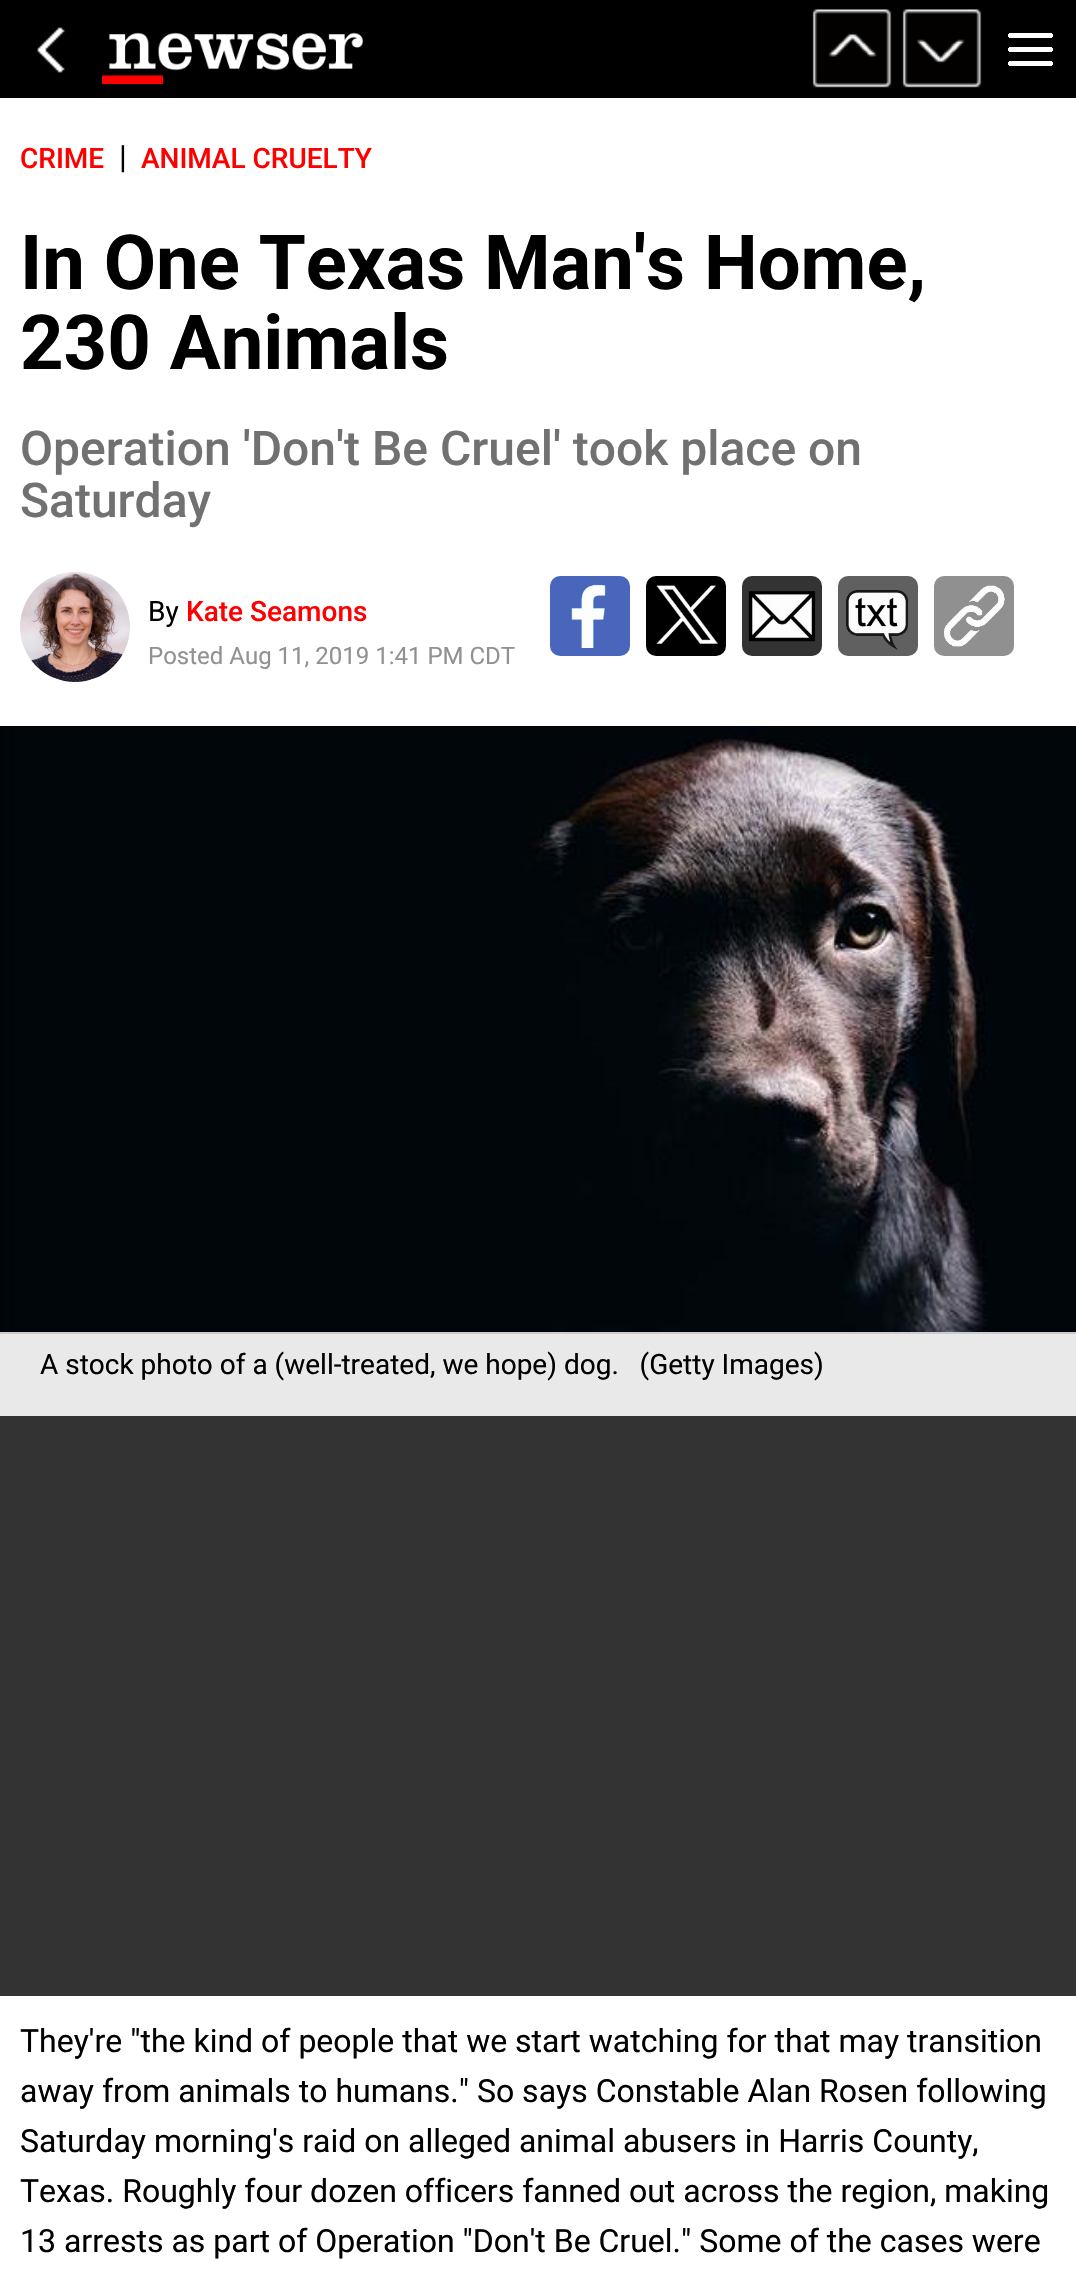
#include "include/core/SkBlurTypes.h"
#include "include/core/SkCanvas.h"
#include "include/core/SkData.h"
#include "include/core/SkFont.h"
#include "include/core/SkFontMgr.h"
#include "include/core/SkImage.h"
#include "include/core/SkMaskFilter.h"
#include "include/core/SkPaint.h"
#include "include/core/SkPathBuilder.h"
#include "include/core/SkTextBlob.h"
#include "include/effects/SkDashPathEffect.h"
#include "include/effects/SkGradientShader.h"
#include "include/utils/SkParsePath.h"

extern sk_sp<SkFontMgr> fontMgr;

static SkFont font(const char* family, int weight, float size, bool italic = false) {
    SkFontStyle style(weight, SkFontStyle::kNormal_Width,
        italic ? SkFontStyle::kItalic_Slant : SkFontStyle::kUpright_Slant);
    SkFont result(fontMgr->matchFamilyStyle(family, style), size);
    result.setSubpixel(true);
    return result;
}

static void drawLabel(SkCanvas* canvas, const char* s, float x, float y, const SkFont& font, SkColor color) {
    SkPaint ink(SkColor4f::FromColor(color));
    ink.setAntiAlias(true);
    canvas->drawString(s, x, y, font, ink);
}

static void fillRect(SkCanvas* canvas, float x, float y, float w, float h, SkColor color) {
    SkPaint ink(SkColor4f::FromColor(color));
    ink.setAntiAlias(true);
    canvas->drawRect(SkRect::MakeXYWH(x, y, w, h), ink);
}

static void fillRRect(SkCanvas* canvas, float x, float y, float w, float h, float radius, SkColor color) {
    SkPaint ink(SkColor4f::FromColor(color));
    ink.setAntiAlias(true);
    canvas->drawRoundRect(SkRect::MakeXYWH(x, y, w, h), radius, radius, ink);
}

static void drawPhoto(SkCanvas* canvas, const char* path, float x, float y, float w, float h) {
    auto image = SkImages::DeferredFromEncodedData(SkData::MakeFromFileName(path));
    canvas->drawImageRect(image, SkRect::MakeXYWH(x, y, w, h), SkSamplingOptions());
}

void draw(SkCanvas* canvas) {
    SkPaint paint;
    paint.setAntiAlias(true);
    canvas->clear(0xFFFFFFFF);
    fillRect(canvas, 0, 0, 1076, 98, 0xFF000000);
    drawPhoto(canvas, "assets/img1.png", 37, 27, 28, 46);
    drawPhoto(canvas, "assets/img2.png", 102, 32, 262, 52);
    drawPhoto(canvas, "assets/img3.png", 812, 9, 80, 79);
    drawPhoto(canvas, "assets/img4.png", 902, 9, 80, 79);
    drawPhoto(canvas, "assets/img5.png", 1008, 33, 45, 33);
    SkFont font1 = font("Roboto", 500, 28);
    drawLabel(canvas, "CRIME", 20, 168, font1, 0xFFFF0000);
    SkFont font2 = font("Roboto", 400, 32);
    drawLabel(canvas, "|", 119, 168, font2, 0xFF000000);
    drawLabel(canvas, "ANIMAL CRUELTY", 141, 168, font1, 0xFFFF0000);
    SkFont font3 = font("Roboto", 700, 76);
    drawLabel(canvas, "In One Texas Man's Home,", 20, 289, font3, 0xFF000000);
    drawLabel(canvas, "230 Animals", 20, 369, font3, 0xFF000000);
    SkFont font4 = font("Roboto", 500, 48);
    drawLabel(canvas, "Operation 'Don't Be Cruel' took place on", 20, 465, font4, 0xFF717171);
    drawLabel(canvas, "Saturday", 20, 517, font4, 0xFF717171);
    drawPhoto(canvas, "assets/img6.png", 20, 572, 110, 110);
    SkFont font5 = font("Roboto", 400, 28);
    drawLabel(canvas, "By", 148, 621, font5, 0xFF000000);
    drawLabel(canvas, "Kate Seamons", 186, 621, font1, 0xFFFF0000);
    SkFont font6 = font("Roboto", 400, 24);
    drawLabel(canvas, "Posted Aug 11, 2019 1:41 PM CDT", 148, 664, font6, 0xFF919191);
    fillRRect(canvas, 550, 576, 80, 80, 10, 0xFF4A65BC);
    drawPhoto(canvas, "assets/img7.png", 571, 584, 35, 64);
    fillRRect(canvas, 646, 576, 80, 80, 10, 0xFF000000);
    drawPhoto(canvas, "assets/img8.png", 656, 585, 62, 59);
    fillRRect(canvas, 742, 576, 80, 80, 10, 0xFF333333);
    drawPhoto(canvas, "assets/img9.png", 748, 591, 68, 51);
    fillRRect(canvas, 838, 576, 80, 80, 10, 0xFF606060);
    drawPhoto(canvas, "assets/img10.png", 846, 590, 62, 60);
    fillRRect(canvas, 934, 576, 80, 80, 10, 0xFF909090);
    drawPhoto(canvas, "assets/img11.png", 944, 585, 61, 62);
    fillRect(canvas, 0, 1334, 1076, 82, 0xFFE9E9E9);
    fillRect(canvas, 0, 1332, 1076, 2, 0xFFCCCCCC);
    drawPhoto(canvas, "assets/img12.png", 0, 726, 1076, 606);
    drawLabel(canvas, "A stock photo of a (well-treated, we hope) dog.   (Getty Images)", 40, 1374, font5, 0xFF000000);
    fillRect(canvas, 0, 1416, 1076, 580, 0xFF333333);
    drawLabel(canvas, "They're \"the kind of people that we start watching for that may transition", 20, 2052, font2, 0xFF000000);
    drawLabel(canvas, "away from animals to humans.\" So says Constable Alan Rosen following", 20, 2102, font2, 0xFF000000);
    drawLabel(canvas, "Saturday morning's raid on alleged animal abusers in Harris County,", 20, 2152, font2, 0xFF000000);
    drawLabel(canvas, "Texas. Roughly four dozen officers fanned out across the region, making", 20, 2202, font2, 0xFF000000);
    drawLabel(canvas, "13 arrests as part of Operation \"Don't Be Cruel.\" Some of the cases were", 20, 2252, font2, 0xFF000000);
}
